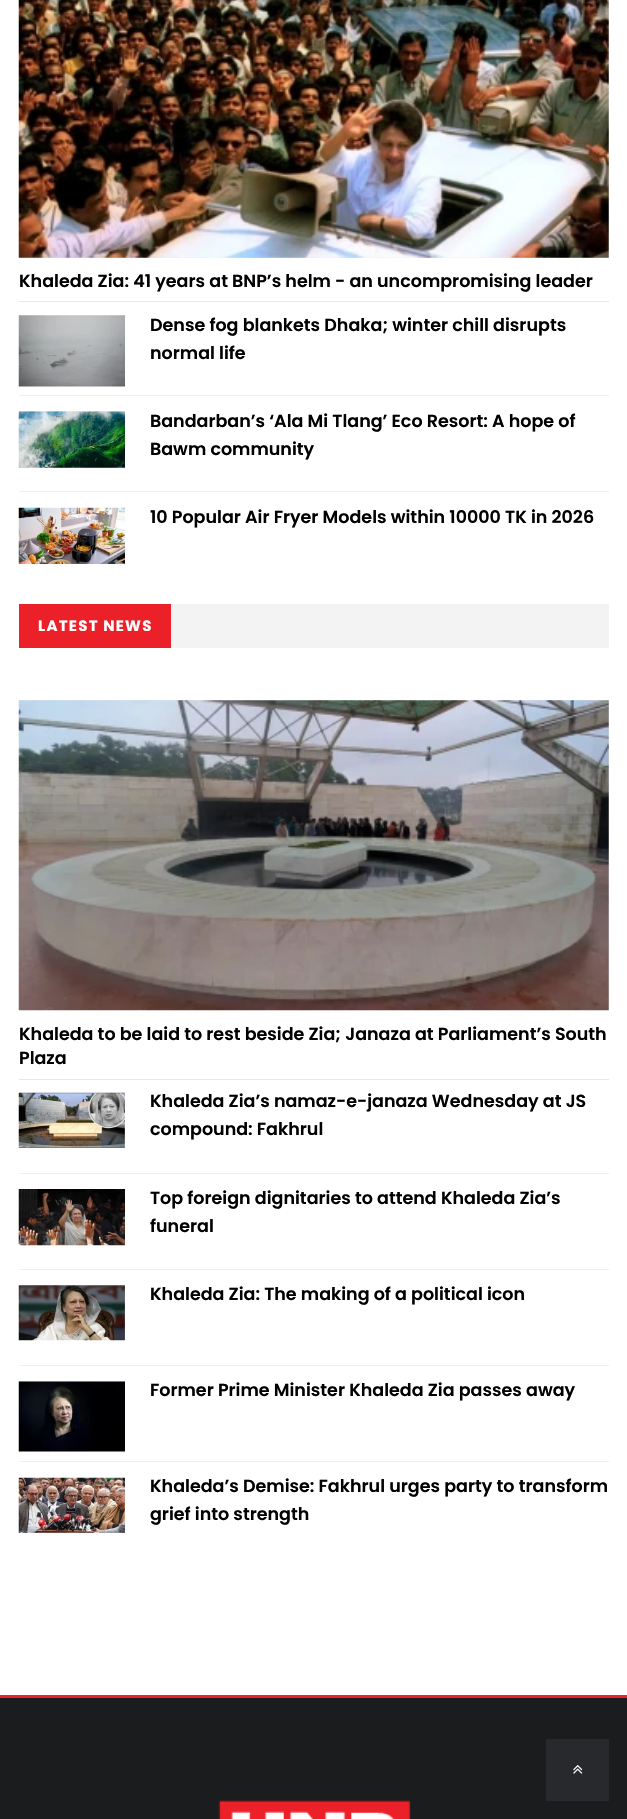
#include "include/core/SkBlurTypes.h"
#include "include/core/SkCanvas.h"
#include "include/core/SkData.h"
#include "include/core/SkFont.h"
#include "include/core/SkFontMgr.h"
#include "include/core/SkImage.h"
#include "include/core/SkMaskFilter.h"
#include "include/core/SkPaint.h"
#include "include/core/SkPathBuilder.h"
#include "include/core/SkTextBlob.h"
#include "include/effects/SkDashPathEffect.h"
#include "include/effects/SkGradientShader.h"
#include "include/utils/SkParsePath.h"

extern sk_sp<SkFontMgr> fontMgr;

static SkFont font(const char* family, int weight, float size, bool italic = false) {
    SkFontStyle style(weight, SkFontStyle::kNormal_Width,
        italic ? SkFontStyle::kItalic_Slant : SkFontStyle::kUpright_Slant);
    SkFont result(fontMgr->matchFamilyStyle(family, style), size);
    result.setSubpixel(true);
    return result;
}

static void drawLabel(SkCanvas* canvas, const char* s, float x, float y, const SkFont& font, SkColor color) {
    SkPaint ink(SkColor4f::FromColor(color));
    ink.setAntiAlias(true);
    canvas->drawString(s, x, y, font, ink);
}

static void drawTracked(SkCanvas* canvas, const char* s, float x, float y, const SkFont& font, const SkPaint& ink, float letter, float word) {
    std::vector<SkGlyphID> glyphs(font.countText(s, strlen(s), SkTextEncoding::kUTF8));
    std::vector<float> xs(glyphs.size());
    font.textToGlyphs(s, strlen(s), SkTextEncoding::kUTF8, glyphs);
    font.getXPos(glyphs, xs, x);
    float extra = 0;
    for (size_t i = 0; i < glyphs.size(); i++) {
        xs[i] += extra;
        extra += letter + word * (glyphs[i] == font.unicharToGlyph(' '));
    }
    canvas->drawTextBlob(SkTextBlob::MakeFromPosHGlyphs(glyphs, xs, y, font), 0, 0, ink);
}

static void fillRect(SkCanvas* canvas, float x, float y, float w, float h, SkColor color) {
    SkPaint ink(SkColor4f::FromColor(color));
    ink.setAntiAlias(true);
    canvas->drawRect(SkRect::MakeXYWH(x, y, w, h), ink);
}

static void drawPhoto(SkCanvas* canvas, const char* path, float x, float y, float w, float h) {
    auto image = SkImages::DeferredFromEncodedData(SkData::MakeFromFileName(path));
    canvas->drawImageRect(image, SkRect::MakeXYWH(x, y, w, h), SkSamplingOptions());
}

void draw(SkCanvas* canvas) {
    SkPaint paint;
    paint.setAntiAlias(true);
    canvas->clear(0xFFFFFFFF);
    fillRect(canvas, 19, 0, 590, 258, 0xFFE9EBEE);
    drawPhoto(canvas, "assets/img1.png", 18, 0, 591, 258);
    fillRect(canvas, 19, 301, 590, 1, 0xFFE7E7E7);
    SkFont font1 = font("Poppins", 600, 17.5f);
    drawLabel(canvas, "Khaleda Zia: 41 years at BNP’s helm - an uncompromising leader", 19, 287, font1, 0xFF000000);
    fillRect(canvas, 19, 395, 590, 1, 0xFFEEEEEE);
    drawPhoto(canvas, "assets/img2.png", 18, 315, 107, 72);
    drawLabel(canvas, "Dense fog blankets Dhaka; winter chill disrupts", 150, 331, font1, 0xFF000000);
    drawLabel(canvas, "normal life", 150, 359, font1, 0xFF000000);
    fillRect(canvas, 19, 491, 590, 1, 0xFFEEEEEE);
    fillRect(canvas, 19, 411, 106, 57, 0xFFE9EBEE);
    drawPhoto(canvas, "assets/img3.png", 18, 411, 107, 57);
    drawLabel(canvas, "Bandarban’s ‘Ala Mi Tlang’ Eco Resort: A hope of", 150, 427, font1, 0xFF000000);
    drawLabel(canvas, "Bawm community", 150, 455, font1, 0xFF000000);
    drawPhoto(canvas, "assets/img4.png", 18, 507, 107, 57);
    drawLabel(canvas, "10 Popular Air Fryer Models within 10000 TK in 2026", 150, 523, font1, 0xFF000000);
    fillRect(canvas, 171, 604, 438, 44, 0xFFF3F3F3);
    fillRect(canvas, 19, 604, 152, 44, 0xFFEC2028);
    SkFont font2 = font("Poppins", 700, 15);
    paint.setColor(0xFFFFFFFF);
    drawTracked(canvas, "LATEST NEWS", 38, 631, font2, paint, 1.25f, 0);
    fillRect(canvas, 19, 700, 590, 310, 0xFFE9EBEE);
    drawPhoto(canvas, "assets/img5.png", 18, 700, 591, 311);
    fillRect(canvas, 19, 1079, 590, 1, 0xFFE7E7E7);
    drawLabel(canvas, "Khaleda to be laid to rest beside Zia; Janaza at Parliament’s South", 19, 1040, font1, 0xFF000000);
    drawLabel(canvas, "Plaza", 19, 1064, font1, 0xFF000000);
    fillRect(canvas, 19, 1173, 590, 1, 0xFFEEEEEE);
    fillRect(canvas, 19, 1093, 106, 55, 0xFFE9EBEE);
    drawPhoto(canvas, "assets/img6.png", 18, 1092, 107, 56);
    drawLabel(canvas, "Khaleda Zia’s namaz-e-janaza Wednesday at JS", 150, 1107, font1, 0xFF000000);
    drawLabel(canvas, "compound: Fakhrul", 150, 1135, font1, 0xFF000000);
    fillRect(canvas, 19, 1269, 590, 1, 0xFFEEEEEE);
    drawPhoto(canvas, "assets/img7.png", 18, 1189, 107, 57);
    drawLabel(canvas, "Top foreign dignitaries to attend Khaleda Zia’s", 150, 1204, font1, 0xFF000000);
    drawLabel(canvas, "funeral", 150, 1232, font1, 0xFF000000);
    fillRect(canvas, 19, 1365, 590, 1, 0xFFEEEEEE);
    fillRect(canvas, 19, 1285, 106, 55, 0xFFE9EBEE);
    drawPhoto(canvas, "assets/img8.png", 18, 1285, 107, 56);
    drawLabel(canvas, "Khaleda Zia: The making of a political icon", 150, 1300, font1, 0xFF000000);
    fillRect(canvas, 19, 1461, 590, 1, 0xFFEEEEEE);
    fillRect(canvas, 19, 1381, 106, 1, 0xFFE9EBEE);
    drawPhoto(canvas, "assets/img9.png", 18, 1381, 107, 71);
    drawLabel(canvas, "Former Prime Minister Khaleda Zia passes away", 150, 1396, font1, 0xFF000000);
    fillRect(canvas, 19, 1478, 106, 55, 0xFFE9EBEE);
    drawPhoto(canvas, "assets/img10.png", 18, 1477, 107, 56);
    drawLabel(canvas, "Khaleda’s Demise: Fakhrul urges party to transform", 150, 1492, font1, 0xFF000000);
    drawLabel(canvas, "grief into strength", 150, 1520, font1, 0xFF000000);
    fillRect(canvas, 0, 1698, 627, 121, 0xFF1A1C1E);
    fillRect(canvas, 0, 1695, 627, 3, 0xFFEB2227);
    drawPhoto(canvas, "assets/img11.png", 218, 1800, 193, 19);
    fillRect(canvas, 546, 1739, 63, 62, 0xFF27292D);
    drawPhoto(canvas, "assets/img12.png", 573, 1765, 10, 9);
}
